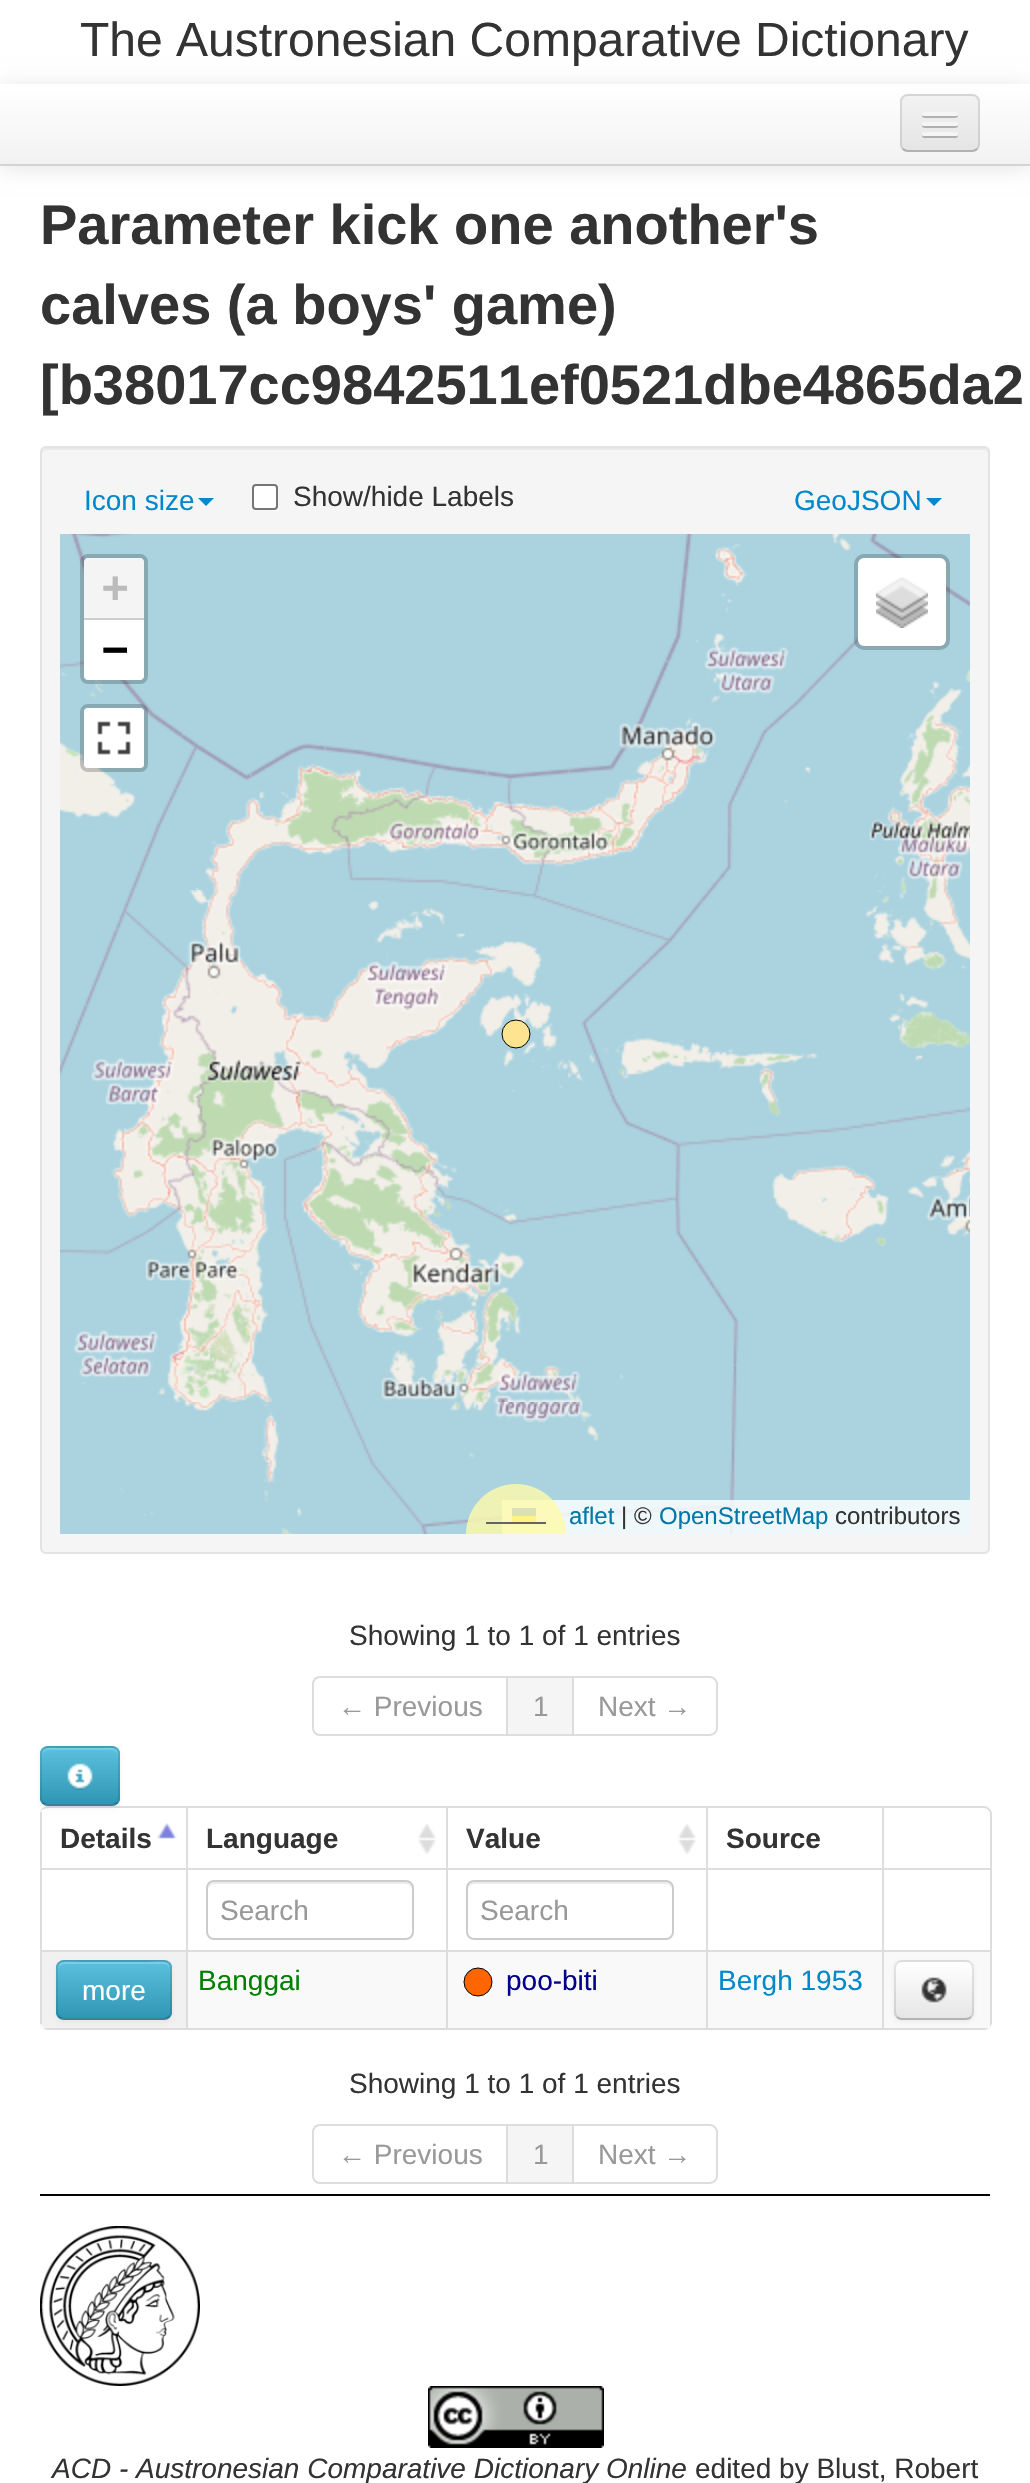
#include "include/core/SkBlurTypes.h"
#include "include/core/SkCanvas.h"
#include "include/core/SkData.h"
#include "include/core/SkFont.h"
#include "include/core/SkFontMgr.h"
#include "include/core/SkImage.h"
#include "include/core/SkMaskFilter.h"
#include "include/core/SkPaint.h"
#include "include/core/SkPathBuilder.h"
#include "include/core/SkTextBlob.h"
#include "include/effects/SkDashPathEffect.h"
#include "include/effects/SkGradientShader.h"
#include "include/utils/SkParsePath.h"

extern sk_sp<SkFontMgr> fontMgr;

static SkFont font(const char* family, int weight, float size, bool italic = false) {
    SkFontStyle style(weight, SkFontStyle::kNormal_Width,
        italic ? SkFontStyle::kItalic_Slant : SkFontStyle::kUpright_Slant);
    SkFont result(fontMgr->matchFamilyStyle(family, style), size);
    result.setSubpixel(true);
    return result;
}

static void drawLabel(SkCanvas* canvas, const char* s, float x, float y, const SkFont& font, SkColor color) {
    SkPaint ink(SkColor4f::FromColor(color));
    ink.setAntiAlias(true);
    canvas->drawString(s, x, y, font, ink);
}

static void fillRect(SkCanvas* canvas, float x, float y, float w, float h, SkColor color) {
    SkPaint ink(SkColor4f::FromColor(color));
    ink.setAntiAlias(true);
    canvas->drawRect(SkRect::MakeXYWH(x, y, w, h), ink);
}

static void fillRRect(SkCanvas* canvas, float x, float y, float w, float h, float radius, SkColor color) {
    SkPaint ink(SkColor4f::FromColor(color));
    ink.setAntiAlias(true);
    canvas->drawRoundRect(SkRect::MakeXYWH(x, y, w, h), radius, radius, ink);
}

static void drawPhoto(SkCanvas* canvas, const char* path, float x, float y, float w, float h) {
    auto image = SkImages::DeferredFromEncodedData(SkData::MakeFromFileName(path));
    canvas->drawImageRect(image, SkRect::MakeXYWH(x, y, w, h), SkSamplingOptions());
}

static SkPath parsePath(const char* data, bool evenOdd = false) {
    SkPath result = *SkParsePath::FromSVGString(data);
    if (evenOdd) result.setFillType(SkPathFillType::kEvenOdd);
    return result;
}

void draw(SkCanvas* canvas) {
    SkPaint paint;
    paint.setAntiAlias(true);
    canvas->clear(0xFFFFFFFF);
    paint.setColor(0x1A000000);
    paint.setMaskFilter(SkMaskFilter::MakeBlur(kNormal_SkBlurStyle, 10));
    canvas->drawRect(SkRect::MakeXYWH(0, 86, 1030, 82), paint);
    paint.setMaskFilter(nullptr);
    SkFont font1 = font("Liberation Sans", 400, 48);
    drawLabel(canvas, "The Austronesian Comparative Dictionary", 80, 56, font1, 0xFF333333);
    {
        const SkColor colors[] = {0xFFFFFFFF, 0xFFF2F2F2};
        const float stops[] = {0, 1};
        const SkPoint ends[] = {{515, 84}, {515, 164}};
        paint.setShader(SkGradientShader::MakeLinear(ends, colors, stops, 2, SkTileMode::kClamp));
        paint.setAlpha(255);
    }
    canvas->drawRect(SkRect::MakeXYWH(0, 84, 1030, 80), paint);
    fillRect(canvas, 0, 164, 1030, 2, 0xFFD4D4D4);
    fillRRect(canvas, 900, 94, 80, 58, 8, 0xFFEDEDED);
    canvas->save();
    canvas->clipPath(parsePath("M908 94H972C976.5 94 980 97.5 980 102V144C980 148.5 976.5 152 972 152H908C903.5 152 900 148.5 900 144V102C900 97.5 903.5 94 908 94Z"), true);
    {
        const SkColor colors[] = {0xFFF2F2F2, 0xFFE5E5E5};
        const float stops[] = {0, 1};
        const SkPoint ends[] = {{940, 96}, {940, 150}};
        paint.setShader(SkGradientShader::MakeLinear(ends, colors, stops, 2, SkTileMode::kClamp));
        paint.setAlpha(255);
    }
    canvas->drawRect(SkRect::MakeXYWH(900, 96, 80, 54), paint);
    canvas->restore();
    paint.setStroke(true);
    paint.setStrokeWidth(2);
    paint.setShader(nullptr);
    paint.setColor(0x40000000);
    canvas->drawPath(parsePath("M977 149C975.5 150.5 974 151 972 151H908C906 151 904.5 150.5 903 149"), paint);
    paint.setColor(0x1A000000);
    canvas->drawPath(parsePath("M903 149C901.5 147.5 901 146 901 144V102C901 100 901.5 98.5 903 97C904.5 95.5 906 95 908 95H972C974 95 975.5 95.5 977 97C978.5 98.5 979 100 979 102V144C979 146 978.5 147.5 977 149"), paint);
    paint.setStroke(false);
    paint.setColor(0xFFB2B2B2);
    canvas->drawPath(parsePath("M922.5 115C920 119 929 118 929.5 118H950.5C951 118 960 119 957.5 115C957.5 115.5 956.5 116 956 116H924C923.5 116 922.5 115.5 922.5 115Z"), paint);
    fillRRect(canvas, 922, 112, 36, 4, 2, 0xFFF5F5F5);
    paint.setColor(0xFFB0B0B0);
    canvas->drawPath(parsePath("M922.5 125C920 129 929 128 929.5 128H950.5C951 128 960 129 957.5 125C957.5 125.5 956.5 126 956 126H924C923.5 126 922.5 125.5 922.5 125Z"), paint);
    fillRRect(canvas, 922, 122, 36, 4, 2, 0xFFF5F5F5);
    paint.setColor(0xFFAEAEAE);
    canvas->drawPath(parsePath("M922.5 135C920 139 929 138 929.5 138H950.5C951 138 960 139 957.5 135C957.5 135.5 956.5 136 956 136H924C923.5 136 922.5 135.5 922.5 135Z"), paint);
    fillRRect(canvas, 922, 132, 36, 4, 2, 0xFFF5F5F5);
    SkFont font2 = font("Liberation Sans", 700, 56);
    drawLabel(canvas, "Parameter kick one another's", 40, 244, font2, 0xFF333333);
    drawLabel(canvas, "calves (a boys' game)", 40, 324, font2, 0xFF333333);
    drawLabel(canvas, "[b38017cc9842511ef0521dbe4865da2", 40, 404, font2, 0xFF333333);
    fillRRect(canvas, 40, 446, 950, 1108, 6, 0xFFF5F5F5);
    paint.setColor(0xFFE9E9E9);
    canvas->drawPath(parsePath("M46 450H984C986 450 988 452 988 454V452C988 450 986 448 984 448H46C44 448 42 450 42 452V454C42 452 44 450 46 450Z"), paint);
    paint.setStroke(true);
    paint.setColor(0xFFE3E3E3);
    canvas->drawRoundRect(SkRect::MakeXYWH(41, 447, 948, 1106), 5, 5, paint);
    SkFont font3 = font("Liberation Sans", 400, 28);
    drawLabel(canvas, "Icon size", 84, 510, font3, 0xFF0088CC);
    paint.setStroke(false);
    paint.setColor(0xFF0088CC);
    canvas->drawPath(parsePath("M198 498H214L206 506Z"), paint);
    paint.setColor(0xFFFFFFFF);
    canvas->drawRoundRect(SkRect::MakeXYWH(253, 485, 24, 24), 3, 3, paint);
    paint.setStroke(true);
    paint.setColor(0xFF767676);
    canvas->drawRoundRect(SkRect::MakeXYWH(253, 485, 24, 24), 3, 3, paint);
    drawLabel(canvas, "Show/hide Labels", 293, 506, font3, 0xFF333333);
    drawLabel(canvas, "GeoJSON", 794, 510, font3, 0xFF0088CC);
    paint.setStroke(false);
    paint.setColor(0xFF0088CC);
    canvas->drawPath(parsePath("M926 498H942L934 506Z"), paint);
    drawPhoto(canvas, "assets/img1.png", 60, 534, 508, 356);
    drawPhoto(canvas, "assets/img2.png", 568, 534, 402, 356);
    drawPhoto(canvas, "assets/img3.png", 60, 890, 508, 512);
    drawPhoto(canvas, "assets/img4.png", 568, 890, 402, 512);
    drawPhoto(canvas, "assets/img5.png", 60, 1402, 508, 132);
    drawPhoto(canvas, "assets/img6.png", 568, 1402, 402, 132);
    paint.setColor(0xFFFEE391);
    canvas->drawCircle(516, 1034, 14, paint);
    paint.setStroke(true);
    paint.setStrokeWidth(1);
    paint.setColor(0xFF000000);
    canvas->drawCircle(516, 1034, 14, paint);
    paint.setStrokeWidth(4);
    paint.setColor(0x33000000);
    canvas->drawRoundRect(SkRect::MakeXYWH(82, 556, 64, 126), 6, 6, paint);
    paint.setStroke(false);
    paint.setColor(0xFFF4F4F4);
    canvas->drawPath(parsePath("M88 558H140C142 558 144 560 144 562V620H84V562C84 560 86 558 88 558Z"), paint);
    fillRect(canvas, 84, 618, 60, 2, 0xFFCCCCCC);
    SkFont font4 = font("DejaVu Sans Mono", 700, 44);
    drawLabel(canvas, "+", 102, 602, font4, 0xFFBBBBBB);
    paint.setColor(0xFFFFFFFF);
    canvas->drawPath(parsePath("M84 620H144V676C144 678 142 680 140 680H88C86 680 84 678 84 676Z"), paint);
    drawLabel(canvas, "−", 102, 664, font4, 0xFF000000);
    paint.setStroke(true);
    paint.setColor(0x33000000);
    canvas->drawRoundRect(SkRect::MakeXYWH(82, 706, 64, 64), 6, 6, paint);
    fillRRect(canvas, 84, 708, 60, 60, 4, 0xFFFFFFFF);
    drawPhoto(canvas, "assets/img7.png", 97, 721, 34, 34);
    fillRRect(canvas, 858, 558, 88, 88, 6, 0xFFFFFFFF);
    canvas->drawRoundRect(SkRect::MakeXYWH(856, 556, 92, 92), 8, 8, paint);
    drawPhoto(canvas, "assets/img8.png", 876, 577, 52, 51);
    fillRect(canvas, 502, 1500, 468, 34, 0xCCFFFFFF);
    fillRect(canvas, 512, 1508, 24, 8, 0xFF4C7BE1);
    fillRect(canvas, 512, 1516, 24, 6, 0xFFFFD500);
    fillRect(canvas, 512, 1522, 24, 2, 0xFFE0BC00);
    paint.setStroke(false);
    paint.setColor(0xCCFFFAAA);
    canvas->drawPath(parsePath("M516 1484C543.5 1484 566 1506.5 566 1534H466C466 1506.5 488.5 1484 516 1484Z"), paint);
    fillRect(canvas, 486, 1522, 60, 2, 0xE6555555);
    SkFont font5 = font("Liberation Sans", 400, 24);
    drawLabel(canvas, "aflet", 569, 1524, font5, 0xFF0078A8);
    drawLabel(canvas, "| ©", 621, 1524, font5, 0xFF333333);
    drawLabel(canvas, "OpenStreetMap", 659, 1524, font5, 0xFF0078A8);
    drawLabel(canvas, "contributors", 835, 1524, font5, 0xFF333333);
    drawLabel(canvas, "Showing 1 to 1 of 1 entries", 349, 1645, font3, 0xFF333333);
    paint.setStroke(true);
    paint.setStrokeWidth(2);
    paint.setColor(0xFFDDDDDD);
    canvas->drawPath(parsePath("M320 1677H507V1735H320C316 1735 313 1732 313 1728V1684C313 1680 316 1677 320 1677Z"), paint);
    drawLabel(canvas, "← Previous", 338, 1716, font3, 0xFF999999);
    fillRect(canvas, 508, 1678, 64, 56, 0xFFF5F5F5);
    fillRect(canvas, 508, 1676, 66, 2, 0xFFDDDDDD);
    fillRect(canvas, 572, 1676, 2, 60, 0xFFDDDDDD);
    fillRect(canvas, 508, 1734, 66, 2, 0xFFDDDDDD);
    drawLabel(canvas, "1", 533, 1716, font3, 0xFF999999);
    paint.setStroke(false);
    canvas->drawPath(parsePath("M574 1676H710C714 1676 718 1680 718 1684V1728C718 1732 714 1736 710 1736H574ZM574 1678H710C713 1678 716 1681 716 1684V1728C716 1731 713 1734 710 1734H574Z", true), paint);
    drawLabel(canvas, "Next →", 598, 1716, font3, 0xFF999999);
    canvas->drawPath(parsePath("M48 1806H984C988 1806 992 1810 992 1814V2022C992 2026 988 2030 984 2030H48C44 2030 40 2026 40 2022V1814C40 1810 44 1806 48 1806ZM48 1808H984C987 1808 990 1811 990 1814V2022C990 2025 987 2028 984 2028H48C44 2028 40 2025 40 2022V1814C40 1811 44 1808 48 1808Z", true), paint);
    fillRect(canvas, 40, 1812, 2, 56, 0xFFDDDDDD);
    paint.setColor(0x0D000000);
    paint.setMaskFilter(SkMaskFilter::MakeBlur(kNormal_SkBlurStyle, 2));
    canvas->drawRoundRect(SkRect::MakeXYWH(40, 1748, 80, 60), 8, 8, paint);
    paint.setMaskFilter(nullptr);
    fillRRect(canvas, 40, 1746, 80, 60, 8, 0xFF49AFCD);
    canvas->save();
    canvas->clipPath(parsePath("M48 1746H112C116.5 1746 120 1749.5 120 1754V1798C120 1802.5 116.5 1806 112 1806H48C43.5 1806 40 1802.5 40 1798V1754C40 1749.5 43.5 1746 48 1746Z"), true);
    {
        const SkColor colors[] = {0xFF5BC0DE, 0xFF2F96B4};
        const float stops[] = {0, 1};
        const SkPoint ends[] = {{80, 1748}, {80, 1804}};
        paint.setShader(SkGradientShader::MakeLinear(ends, colors, stops, 2, SkTileMode::kClamp));
        paint.setAlpha(255);
    }
    canvas->drawRect(SkRect::MakeXYWH(40, 1748, 80, 56), paint);
    canvas->restore();
    paint.setShader(nullptr);
    paint.setColor(0x33FFFFFF);
    canvas->drawPath(parsePath("M48 1750H112C115 1750 118 1753 118 1756C118 1746 110 1748 101 1748H59C50 1748 42 1746 42 1756C42 1753 45 1750 48 1750Z"), paint);
    paint.setStroke(true);
    paint.setColor(0x40000000);
    canvas->drawPath(parsePath("M117 1803C115.5 1804.5 114 1805 112 1805H48C46 1805 44.5 1804.5 43 1803"), paint);
    paint.setColor(0x1A000000);
    canvas->drawPath(parsePath("M43 1803C41.5 1801.5 41 1800 41 1798V1754C41 1752 41.5 1750.5 43 1749C44.5 1747.5 46 1747 48 1747H112C114 1747 115.5 1747.5 117 1749C118.5 1750.5 119 1752 119 1754V1798C119 1800 118.5 1801.5 117 1803"), paint);
    drawPhoto(canvas, "assets/img9.png", 67, 1763, 26, 27);
    drawPhoto(canvas, "assets/img10.png", 157, 1823, 20, 16);
    SkFont font6 = font("Liberation Sans", 700, 28);
    drawLabel(canvas, "Details", 60, 1848, font6, 0xFF333333);
    drawPhoto(canvas, "assets/img11.png", 418, 1823, 18, 32);
    fillRect(canvas, 186, 1808, 2, 60, 0xFFDDDDDD);
    drawLabel(canvas, "Language", 206, 1848, font6, 0xFF333333);
    drawPhoto(canvas, "assets/img11.png", 678, 1823, 18, 32);
    fillRect(canvas, 446, 1808, 2, 60, 0xFFDDDDDD);
    drawLabel(canvas, "Value", 466, 1848, font6, 0xFF333333);
    fillRect(canvas, 706, 1808, 2, 60, 0xFFDDDDDD);
    drawLabel(canvas, "Source", 726, 1848, font6, 0xFF333333);
    fillRect(canvas, 882, 1808, 2, 60, 0xFFDDDDDD);
    fillRect(canvas, 40, 1868, 950, 2, 0xFFDDDDDD);
    fillRect(canvas, 40, 1868, 2, 82, 0xFFDDDDDD);
    fillRect(canvas, 186, 1868, 2, 82, 0xFFDDDDDD);
    paint.setStroke(false);
    paint.setColor(0xFFECECEC);
    canvas->drawPath(parsePath("M214 1884H406C409 1884 412 1887 412 1890V1888C412 1885 409 1882 406 1882H214C211 1882 208 1885 208 1888V1890C208 1887 211 1884 214 1884Z"), paint);
    paint.setStroke(true);
    paint.setColor(0xFFCCCCCC);
    canvas->drawRoundRect(SkRect::MakeXYWH(207, 1881, 206, 58), 7, 7, paint);
    drawLabel(canvas, "Search", 220, 1920, font3, 0xFF999999);
    fillRect(canvas, 446, 1868, 2, 82, 0xFFDDDDDD);
    paint.setStroke(false);
    paint.setColor(0xFFECECEC);
    canvas->drawPath(parsePath("M474 1884H666C669 1884 672 1887 672 1890V1888C672 1885 669 1882 666 1882H474C471 1882 468 1885 468 1888V1890C468 1887 471 1884 474 1884Z"), paint);
    paint.setStroke(true);
    paint.setColor(0xFFCCCCCC);
    canvas->drawRoundRect(SkRect::MakeXYWH(467, 1881, 206, 58), 7, 7, paint);
    drawLabel(canvas, "Search", 480, 1920, font3, 0xFF999999);
    fillRect(canvas, 706, 1868, 2, 82, 0xFFDDDDDD);
    fillRect(canvas, 882, 1868, 2, 82, 0xFFDDDDDD);
    fillRect(canvas, 40, 1952, 950, 76, 0xFFF9F9F9);
    paint.setStroke(false);
    paint.setColor(0xFFF1F1F1);
    canvas->drawPath(parsePath("M40 1950H186V2028H48C43.5 2028 40 2024.5 40 2020Z"), paint);
    fillRect(canvas, 40, 1950, 950, 2, 0xFFDDDDDD);
    fillRect(canvas, 40, 1950, 2, 74, 0xFFDDDDDD);
    paint.setColor(0x0D000000);
    paint.setMaskFilter(SkMaskFilter::MakeBlur(kNormal_SkBlurStyle, 2));
    canvas->drawRoundRect(SkRect::MakeXYWH(56, 1962, 116, 60), 8, 8, paint);
    paint.setMaskFilter(nullptr);
    fillRRect(canvas, 56, 1960, 116, 60, 8, 0xFF49AFCD);
    canvas->save();
    canvas->clipPath(parsePath("M64 1960H164C168.5 1960 172 1963.5 172 1968V2012C172 2016.5 168.5 2020 164 2020H64C59.5 2020 56 2016.5 56 2012V1968C56 1963.5 59.5 1960 64 1960Z"), true);
    {
        const SkColor colors[] = {0xFF5BC0DE, 0xFF2F96B4};
        const float stops[] = {0, 1};
        const SkPoint ends[] = {{114, 1962}, {114, 2018}};
        paint.setShader(SkGradientShader::MakeLinear(ends, colors, stops, 2, SkTileMode::kClamp));
        paint.setAlpha(255);
    }
    canvas->drawRect(SkRect::MakeXYWH(56, 1962, 116, 56), paint);
    canvas->restore();
    paint.setShader(nullptr);
    paint.setColor(0x33FFFFFF);
    canvas->drawPath(parsePath("M64 1964H164C167 1964 170 1967 170 1970C170 1958 157 1962 147 1962H81C71 1962 58 1958 58 1970C58 1967 61 1964 64 1964Z"), paint);
    paint.setStroke(true);
    paint.setColor(0x40000000);
    canvas->drawPath(parsePath("M169 2017C167.5 2018.5 166 2019 164 2019H64C62 2019 60.5 2018.5 59 2017"), paint);
    paint.setColor(0x1A000000);
    canvas->drawPath(parsePath("M59 2017C57.5 2015.5 57 2014 57 2012V1968C57 1966 57.5 1964.5 59 1963C60.5 1961.5 62 1961 64 1961H164C166 1961 167.5 1961.5 169 1963C170.5 1964.5 171 1966 171 1968V2012C171 2014 170.5 2015.5 169 2017"), paint);
    drawLabel(canvas, "more", 82, 2000, font3, 0xFFFFFFFF);
    fillRect(canvas, 186, 1950, 2, 78, 0xFFDDDDDD);
    drawLabel(canvas, "Banggai", 198, 1990, font3, 0xFF008000);
    fillRect(canvas, 446, 1950, 2, 78, 0xFFDDDDDD);
    drawLabel(canvas, "poo-biti", 506, 1990, font3, 0xFF00008B);
    paint.setStroke(false);
    paint.setColor(0xFFFF6600);
    canvas->drawCircle(478, 1982, 14, paint);
    paint.setStroke(true);
    paint.setStrokeWidth(1);
    paint.setColor(0xFF000000);
    canvas->drawCircle(478, 1982, 14, paint);
    fillRect(canvas, 706, 1950, 2, 78, 0xFFDDDDDD);
    drawLabel(canvas, "Bergh 1953", 718, 1990, font3, 0xFF0088CC);
    fillRect(canvas, 882, 1950, 2, 78, 0xFFDDDDDD);
    paint.setStroke(false);
    paint.setColor(0x0D000000);
    paint.setMaskFilter(SkMaskFilter::MakeBlur(kNormal_SkBlurStyle, 2));
    canvas->drawRoundRect(SkRect::MakeXYWH(894, 1962, 80, 60), 8, 8, paint);
    paint.setMaskFilter(nullptr);
    fillRRect(canvas, 894, 1960, 80, 60, 8, 0xFFF5F5F5);
    canvas->save();
    canvas->clipPath(parsePath("M902 1960H966C970.5 1960 974 1963.5 974 1968V2012C974 2016.5 970.5 2020 966 2020H902C897.5 2020 894 2016.5 894 2012V1968C894 1963.5 897.5 1960 902 1960Z"), true);
    {
        const SkColor colors[] = {0xFFFFFFFF, 0xFFE6E6E6};
        const float stops[] = {0, 1};
        const SkPoint ends[] = {{934, 1962}, {934, 2018}};
        paint.setShader(SkGradientShader::MakeLinear(ends, colors, stops, 2, SkTileMode::kClamp));
        paint.setAlpha(255);
    }
    canvas->drawRect(SkRect::MakeXYWH(894, 1962, 80, 56), paint);
    canvas->restore();
    paint.setStroke(true);
    paint.setStrokeWidth(2);
    paint.setShader(nullptr);
    paint.setColor(0xFFB3B3B3);
    canvas->drawPath(parsePath("M971 2017C969.5 2018.5 968 2019 966 2019H902C900 2019 898.5 2018.5 897 2017"), paint);
    paint.setColor(0x1A000000);
    canvas->drawPath(parsePath("M897 2017C895.5 2015.5 895 2014 895 2012V1968C895 1966 895.5 1964.5 897 1963C898.5 1961.5 900 1961 902 1961H966C968 1961 969.5 1961.5 971 1963C972.5 1964.5 973 1966 973 1968V2012C973 2014 972.5 2015.5 971 2017"), paint);
    drawPhoto(canvas, "assets/img12.png", 921, 1977, 26, 27);
    drawLabel(canvas, "Showing 1 to 1 of 1 entries", 349, 2093, font3, 0xFF333333);
    paint.setColor(0xFFDDDDDD);
    canvas->drawPath(parsePath("M320 2125H507V2183H320C316 2183 313 2180 313 2176V2132C313 2128 316 2125 320 2125Z"), paint);
    drawLabel(canvas, "← Previous", 338, 2164, font3, 0xFF999999);
    fillRect(canvas, 508, 2126, 64, 56, 0xFFF5F5F5);
    fillRect(canvas, 508, 2124, 66, 2, 0xFFDDDDDD);
    fillRect(canvas, 572, 2124, 2, 60, 0xFFDDDDDD);
    fillRect(canvas, 508, 2182, 66, 2, 0xFFDDDDDD);
    drawLabel(canvas, "1", 533, 2164, font3, 0xFF999999);
    paint.setStroke(false);
    canvas->drawPath(parsePath("M574 2124H710C714 2124 718 2128 718 2132V2176C718 2180 714 2184 710 2184H574ZM574 2126H710C713 2126 716 2129 716 2132V2176C716 2179 713 2182 710 2182H574Z", true), paint);
    drawLabel(canvas, "Next →", 598, 2164, font3, 0xFF999999);
    fillRect(canvas, 40, 2194, 950, 2, 0xFF000000);
    drawPhoto(canvas, "assets/img13.png", 40, 2226, 160, 160);
    drawPhoto(canvas, "assets/img14.png", 428, 2386, 176, 62);
    SkFont font7 = font("Liberation Sans", 400, 28, true);
    drawLabel(canvas, "ACD - Austronesian Comparative Dictionary Online", 52, 2478, font7, 0xFF333333);
    drawLabel(canvas, "edited by Blust, Robert", 695, 2478, font3, 0xFF333333);
}
